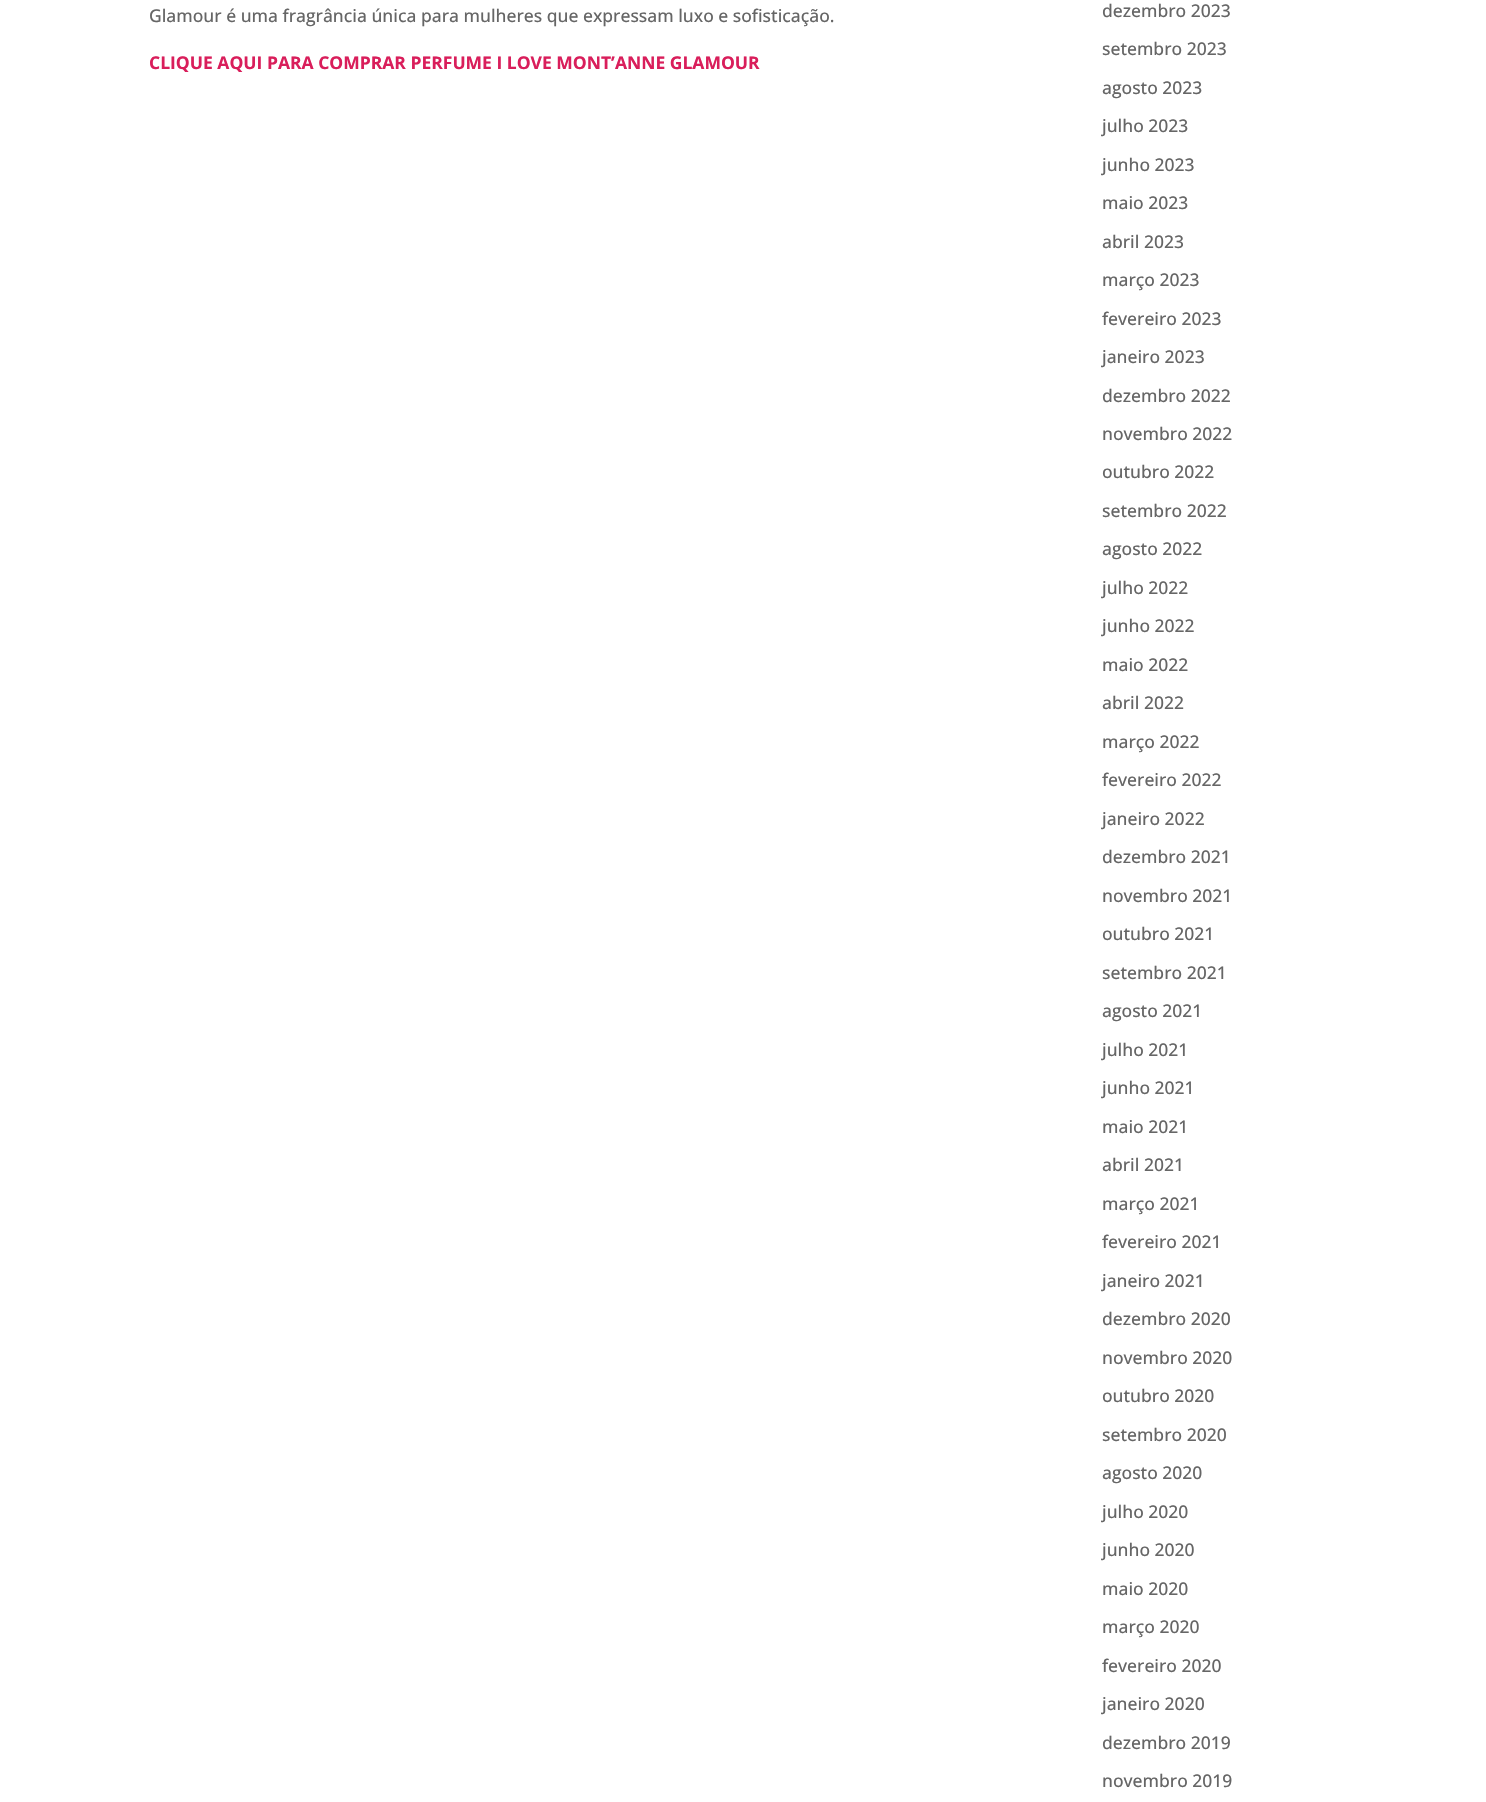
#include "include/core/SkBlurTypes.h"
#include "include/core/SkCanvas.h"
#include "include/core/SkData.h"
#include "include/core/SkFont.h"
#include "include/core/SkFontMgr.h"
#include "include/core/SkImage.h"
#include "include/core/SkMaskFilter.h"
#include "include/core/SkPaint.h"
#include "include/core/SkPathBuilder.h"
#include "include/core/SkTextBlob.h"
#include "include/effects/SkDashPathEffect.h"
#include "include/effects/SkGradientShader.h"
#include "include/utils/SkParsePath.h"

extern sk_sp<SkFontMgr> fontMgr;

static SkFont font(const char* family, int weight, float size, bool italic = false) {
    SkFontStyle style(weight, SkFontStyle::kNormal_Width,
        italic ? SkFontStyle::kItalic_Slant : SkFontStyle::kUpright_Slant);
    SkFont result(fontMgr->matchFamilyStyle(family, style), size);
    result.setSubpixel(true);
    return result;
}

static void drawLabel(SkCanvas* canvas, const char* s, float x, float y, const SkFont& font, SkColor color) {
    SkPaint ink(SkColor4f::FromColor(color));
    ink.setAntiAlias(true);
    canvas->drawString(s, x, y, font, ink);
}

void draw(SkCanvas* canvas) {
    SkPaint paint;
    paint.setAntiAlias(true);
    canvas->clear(0xFFFFFFFF);
    SkFont font1 = font("Open Sans", 500, 17.5f);
    drawLabel(canvas, "Glamour é uma fragrância única para mulheres que expressam luxo e sofisticação.", 149, 22, font1, 0xFF666666);
    SkFont font2 = font("Open Sans", 700, 17.5f);
    drawLabel(canvas, "CLIQUE AQUI PARA COMPRAR PERFUME I LOVE MONT’ANNE GLAMOUR", 149, 69, font2, 0xFFD91E5B);
    drawLabel(canvas, "dezembro 2023", 1102, 17, font1, 0xFF666666);
    drawLabel(canvas, "setembro 2023", 1102, 55, font1, 0xFF666666);
    drawLabel(canvas, "agosto 2023", 1102, 94, font1, 0xFF666666);
    drawLabel(canvas, "julho 2023", 1102, 132, font1, 0xFF666666);
    drawLabel(canvas, "junho 2023", 1102, 171, font1, 0xFF666666);
    drawLabel(canvas, "maio 2023", 1102, 209, font1, 0xFF666666);
    drawLabel(canvas, "abril 2023", 1102, 248, font1, 0xFF666666);
    drawLabel(canvas, "março 2023", 1102, 286, font1, 0xFF666666);
    drawLabel(canvas, "fevereiro 2023", 1102, 325, font1, 0xFF666666);
    drawLabel(canvas, "janeiro 2023", 1102, 363, font1, 0xFF666666);
    drawLabel(canvas, "dezembro 2022", 1102, 402, font1, 0xFF666666);
    drawLabel(canvas, "novembro 2022", 1102, 440, font1, 0xFF666666);
    drawLabel(canvas, "outubro 2022", 1102, 478, font1, 0xFF666666);
    drawLabel(canvas, "setembro 2022", 1102, 517, font1, 0xFF666666);
    drawLabel(canvas, "agosto 2022", 1102, 555, font1, 0xFF666666);
    drawLabel(canvas, "julho 2022", 1102, 594, font1, 0xFF666666);
    drawLabel(canvas, "junho 2022", 1102, 632, font1, 0xFF666666);
    drawLabel(canvas, "maio 2022", 1102, 671, font1, 0xFF666666);
    drawLabel(canvas, "abril 2022", 1102, 709, font1, 0xFF666666);
    drawLabel(canvas, "março 2022", 1102, 748, font1, 0xFF666666);
    drawLabel(canvas, "fevereiro 2022", 1102, 786, font1, 0xFF666666);
    drawLabel(canvas, "janeiro 2022", 1102, 825, font1, 0xFF666666);
    drawLabel(canvas, "dezembro 2021", 1102, 863, font1, 0xFF666666);
    drawLabel(canvas, "novembro 2021", 1102, 902, font1, 0xFF666666);
    drawLabel(canvas, "outubro 2021", 1102, 940, font1, 0xFF666666);
    drawLabel(canvas, "setembro 2021", 1102, 979, font1, 0xFF666666);
    drawLabel(canvas, "agosto 2021", 1102, 1017, font1, 0xFF666666);
    drawLabel(canvas, "julho 2021", 1102, 1056, font1, 0xFF666666);
    drawLabel(canvas, "junho 2021", 1102, 1094, font1, 0xFF666666);
    drawLabel(canvas, "maio 2021", 1102, 1133, font1, 0xFF666666);
    drawLabel(canvas, "abril 2021", 1102, 1171, font1, 0xFF666666);
    drawLabel(canvas, "março 2021", 1102, 1210, font1, 0xFF666666);
    drawLabel(canvas, "fevereiro 2021", 1102, 1248, font1, 0xFF666666);
    drawLabel(canvas, "janeiro 2021", 1102, 1287, font1, 0xFF666666);
    drawLabel(canvas, "dezembro 2020", 1102, 1325, font1, 0xFF666666);
    drawLabel(canvas, "novembro 2020", 1102, 1364, font1, 0xFF666666);
    drawLabel(canvas, "outubro 2020", 1102, 1402, font1, 0xFF666666);
    drawLabel(canvas, "setembro 2020", 1102, 1441, font1, 0xFF666666);
    drawLabel(canvas, "agosto 2020", 1102, 1479, font1, 0xFF666666);
    drawLabel(canvas, "julho 2020", 1102, 1518, font1, 0xFF666666);
    drawLabel(canvas, "junho 2020", 1102, 1556, font1, 0xFF666666);
    drawLabel(canvas, "maio 2020", 1102, 1595, font1, 0xFF666666);
    drawLabel(canvas, "março 2020", 1102, 1633, font1, 0xFF666666);
    drawLabel(canvas, "fevereiro 2020", 1102, 1672, font1, 0xFF666666);
    drawLabel(canvas, "janeiro 2020", 1102, 1710, font1, 0xFF666666);
    drawLabel(canvas, "dezembro 2019", 1102, 1749, font1, 0xFF666666);
    drawLabel(canvas, "novembro 2019", 1102, 1787, font1, 0xFF666666);
}
